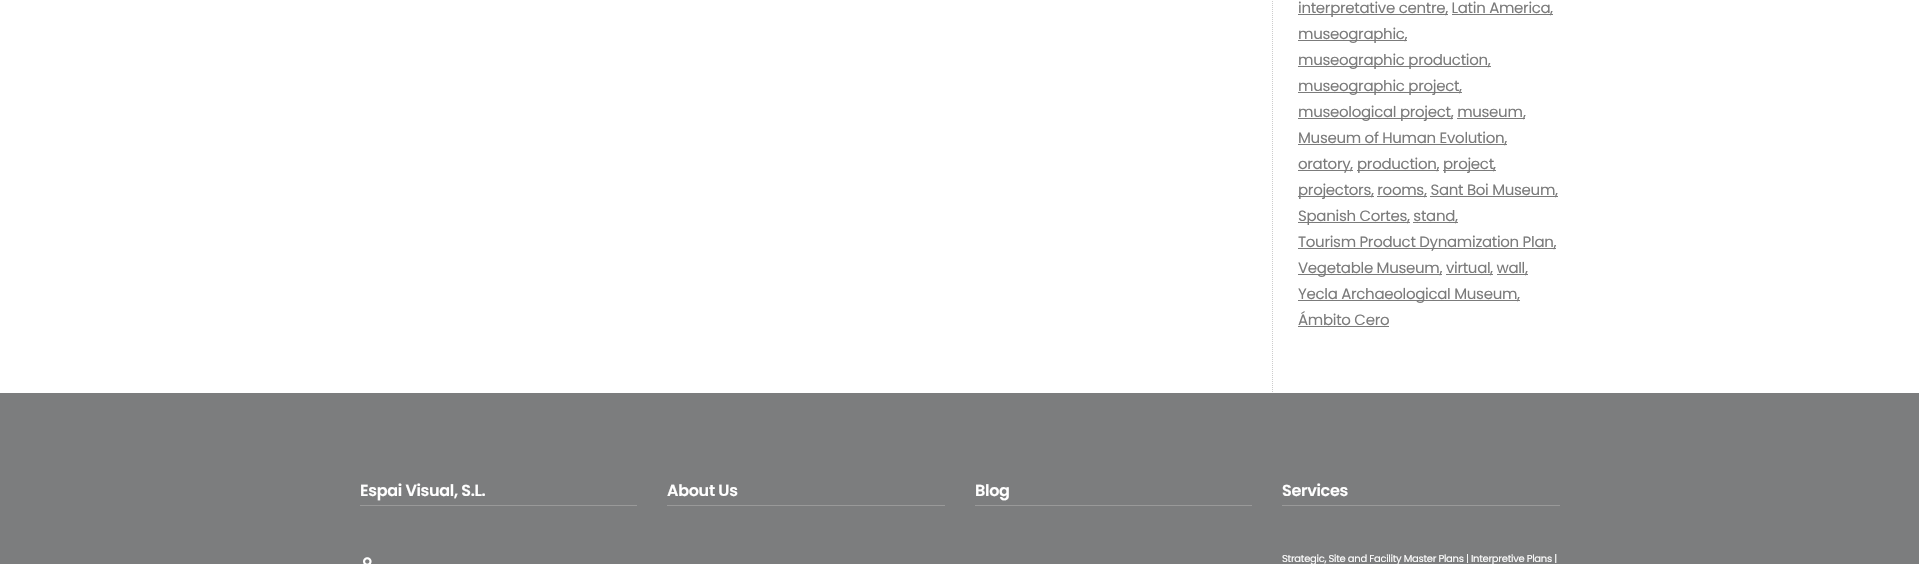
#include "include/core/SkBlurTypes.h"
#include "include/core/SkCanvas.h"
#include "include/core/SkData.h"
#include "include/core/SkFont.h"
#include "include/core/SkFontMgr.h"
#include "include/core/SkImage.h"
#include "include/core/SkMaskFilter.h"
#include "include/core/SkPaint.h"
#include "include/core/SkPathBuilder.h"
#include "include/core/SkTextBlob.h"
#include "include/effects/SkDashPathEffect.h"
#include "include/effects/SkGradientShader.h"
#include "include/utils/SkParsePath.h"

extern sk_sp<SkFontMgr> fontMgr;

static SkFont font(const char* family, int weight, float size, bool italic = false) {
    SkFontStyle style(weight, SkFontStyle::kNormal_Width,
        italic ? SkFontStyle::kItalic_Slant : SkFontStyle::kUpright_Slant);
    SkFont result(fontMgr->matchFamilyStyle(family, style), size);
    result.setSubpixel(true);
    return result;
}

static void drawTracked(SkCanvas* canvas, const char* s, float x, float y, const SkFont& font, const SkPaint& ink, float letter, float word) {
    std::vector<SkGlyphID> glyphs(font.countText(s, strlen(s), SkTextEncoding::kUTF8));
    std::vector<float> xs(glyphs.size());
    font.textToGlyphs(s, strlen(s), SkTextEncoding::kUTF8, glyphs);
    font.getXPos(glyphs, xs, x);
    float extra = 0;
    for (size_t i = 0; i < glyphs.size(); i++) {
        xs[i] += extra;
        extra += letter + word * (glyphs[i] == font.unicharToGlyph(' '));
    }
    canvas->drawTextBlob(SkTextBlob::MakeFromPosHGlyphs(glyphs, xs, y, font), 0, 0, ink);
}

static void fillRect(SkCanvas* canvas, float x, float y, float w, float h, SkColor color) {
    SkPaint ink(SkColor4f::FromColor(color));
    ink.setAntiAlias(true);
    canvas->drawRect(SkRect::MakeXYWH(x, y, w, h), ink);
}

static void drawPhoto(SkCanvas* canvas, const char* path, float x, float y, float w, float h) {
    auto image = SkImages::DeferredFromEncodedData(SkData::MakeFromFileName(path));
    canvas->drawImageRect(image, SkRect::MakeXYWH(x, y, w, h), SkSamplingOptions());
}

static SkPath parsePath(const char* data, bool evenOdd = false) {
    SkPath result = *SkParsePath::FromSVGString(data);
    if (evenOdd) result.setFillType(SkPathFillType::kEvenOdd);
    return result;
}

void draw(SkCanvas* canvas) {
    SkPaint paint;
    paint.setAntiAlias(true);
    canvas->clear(0xFFFFFFFF);
    paint.setStroke(true);
    paint.setStrokeWidth(1);
    paint.setColor(0xFFCCCCCC);
    paint.setPathEffect(SkDashPathEffect::Make({{1, 1}}, 0));
    canvas->drawPath(parsePath("M1272.5-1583V393"), paint);
    paint.setPathEffect(nullptr);
    fillRect(canvas, 1298, 14, 150, 1, 0xFF7B7B7B);
    SkFont font1 = font("Poppins", 400, 15);
    paint.setStroke(false);
    paint.setColor(0xFF7B7B7B);
    drawTracked(canvas, "interpretative centre, Latin America", 1298, 13, font1, paint, -0.3f, 0);
    fillRect(canvas, 1452, 14, 101, 1, 0xFF7B7B7B);
    drawTracked(canvas, ",", 1550, 13, font1, paint, -0.3f, 0);
    fillRect(canvas, 1298, 40, 109, 1, 0xFF7B7B7B);
    drawTracked(canvas, "museographic,", 1298, 39, font1, paint, -0.3f, 0);
    fillRect(canvas, 1298, 66, 193, 1, 0xFF7B7B7B);
    drawTracked(canvas, "museographic production,", 1298, 65, font1, paint, -0.3f, 0);
    fillRect(canvas, 1298, 92, 164, 1, 0xFF7B7B7B);
    drawTracked(canvas, "museographic project,", 1298, 91, font1, paint, -0.3f, 0);
    fillRect(canvas, 1298, 118, 155, 1, 0xFF7B7B7B);
    drawTracked(canvas, "museological project, museum", 1298, 117, font1, paint, -0.3f, 0);
    fillRect(canvas, 1457, 118, 68, 1, 0xFF7B7B7B);
    drawTracked(canvas, ",", 1523, 117, font1, paint, -0.3f, 0);
    fillRect(canvas, 1298, 144, 209, 1, 0xFF7B7B7B);
    drawTracked(canvas, "Museum of Human Evolution,", 1298, 143, font1, paint, -0.3f, 0);
    fillRect(canvas, 1298, 170, 52, 1, 0xFF7B7B7B);
    drawTracked(canvas, "oratory", 1298, 169, font1, paint, -0.3f, 0);
    fillRect(canvas, 1350, 170, 3, 1, 0xFF7B7B7B);
    drawTracked(canvas, ",", 1350, 169, font1, paint, -0.3f, 0);
    fillRect(canvas, 1357, 170, 82, 1, 0xFF7B7B7B);
    drawTracked(canvas, "production,", 1357, 169, font1, paint, -0.3f, 0);
    fillRect(canvas, 1443, 170, 50, 1, 0xFF7B7B7B);
    drawTracked(canvas, "project", 1443, 169, font1, paint, -0.3f, 0);
    fillRect(canvas, 1493, 170, 3, 1, 0xFF7B7B7B);
    drawTracked(canvas, ",", 1493, 169, font1, paint, -0.3f, 0);
    fillRect(canvas, 1298, 196, 76, 1, 0xFF7B7B7B);
    drawTracked(canvas, "projectors, rooms", 1298, 195, font1, paint, -0.3f, 0);
    fillRect(canvas, 1377, 196, 50, 1, 0xFF7B7B7B);
    drawTracked(canvas, ", Sant Boi Museum", 1424, 195, font1, paint, -0.3f, 0);
    fillRect(canvas, 1430, 196, 128, 1, 0xFF7B7B7B);
    drawTracked(canvas, ",", 1555, 195, font1, paint, -0.3f, 0);
    fillRect(canvas, 1298, 222, 112, 1, 0xFF7B7B7B);
    drawTracked(canvas, "Spanish Cortes, stand", 1298, 221, font1, paint, -0.3f, 0);
    fillRect(canvas, 1413, 222, 45, 1, 0xFF7B7B7B);
    drawTracked(canvas, ",", 1455, 221, font1, paint, -0.3f, 0);
    fillRect(canvas, 1298, 248, 258, 1, 0xFF7B7B7B);
    drawTracked(canvas, "Tourism Product Dynamization Plan,", 1298, 247, font1, paint, -0.3f, 0);
    fillRect(canvas, 1298, 274, 144, 1, 0xFF7B7B7B);
    drawTracked(canvas, "Vegetable Museum, virtual", 1298, 273, font1, paint, -0.3f, 0);
    fillRect(canvas, 1446, 274, 47, 1, 0xFF7B7B7B);
    drawTracked(canvas, ", wall", 1490, 273, font1, paint, -0.3f, 0);
    fillRect(canvas, 1497, 274, 31, 1, 0xFF7B7B7B);
    drawTracked(canvas, ",", 1525, 273, font1, paint, -0.3f, 0);
    fillRect(canvas, 1298, 300, 222, 1, 0xFF7B7B7B);
    drawTracked(canvas, "Yecla Archaeological Museum,", 1298, 299, font1, paint, -0.3f, 0);
    drawTracked(canvas, "Ámbito Cero", 1298, 325, font1, paint, -0.3f, 0);
    fillRect(canvas, 1298, 326, 91, 1, 0xFF7B7B7B);
    fillRect(canvas, 0, 393, 1919, 171, 0xFF7C7D7E);
    fillRect(canvas, 360, 505, 277, 1, 0xFF999999);
    SkFont font2 = font("Poppins", 600, 16);
    paint.setColor(0xFFFFFFFF);
    drawTracked(canvas, "Espai Visual, S.L.", 360, 496, font2, paint, -0.3f, 0);
    drawPhoto(canvas, "assets/img1.png", 363, 557, 9, 7);
    fillRect(canvas, 667, 505, 278, 1, 0xFF999999);
    drawTracked(canvas, "About Us", 667, 496, font2, paint, -0.3f, 0);
    fillRect(canvas, 975, 505, 277, 1, 0xFF999999);
    drawTracked(canvas, "Blog", 975, 496, font2, paint, -0.3f, 0);
    fillRect(canvas, 1282, 505, 278, 1, 0xFF999999);
    drawTracked(canvas, "Services", 1282, 496, font2, paint, -0.3f, 0);
    SkFont font3 = font("Poppins", 400, 10);
    drawTracked(canvas, "Strategic, Site and Facility Master Plans | Interpretive Plans |", 1282, 562, font3, paint, -0.3f, 0);
}
